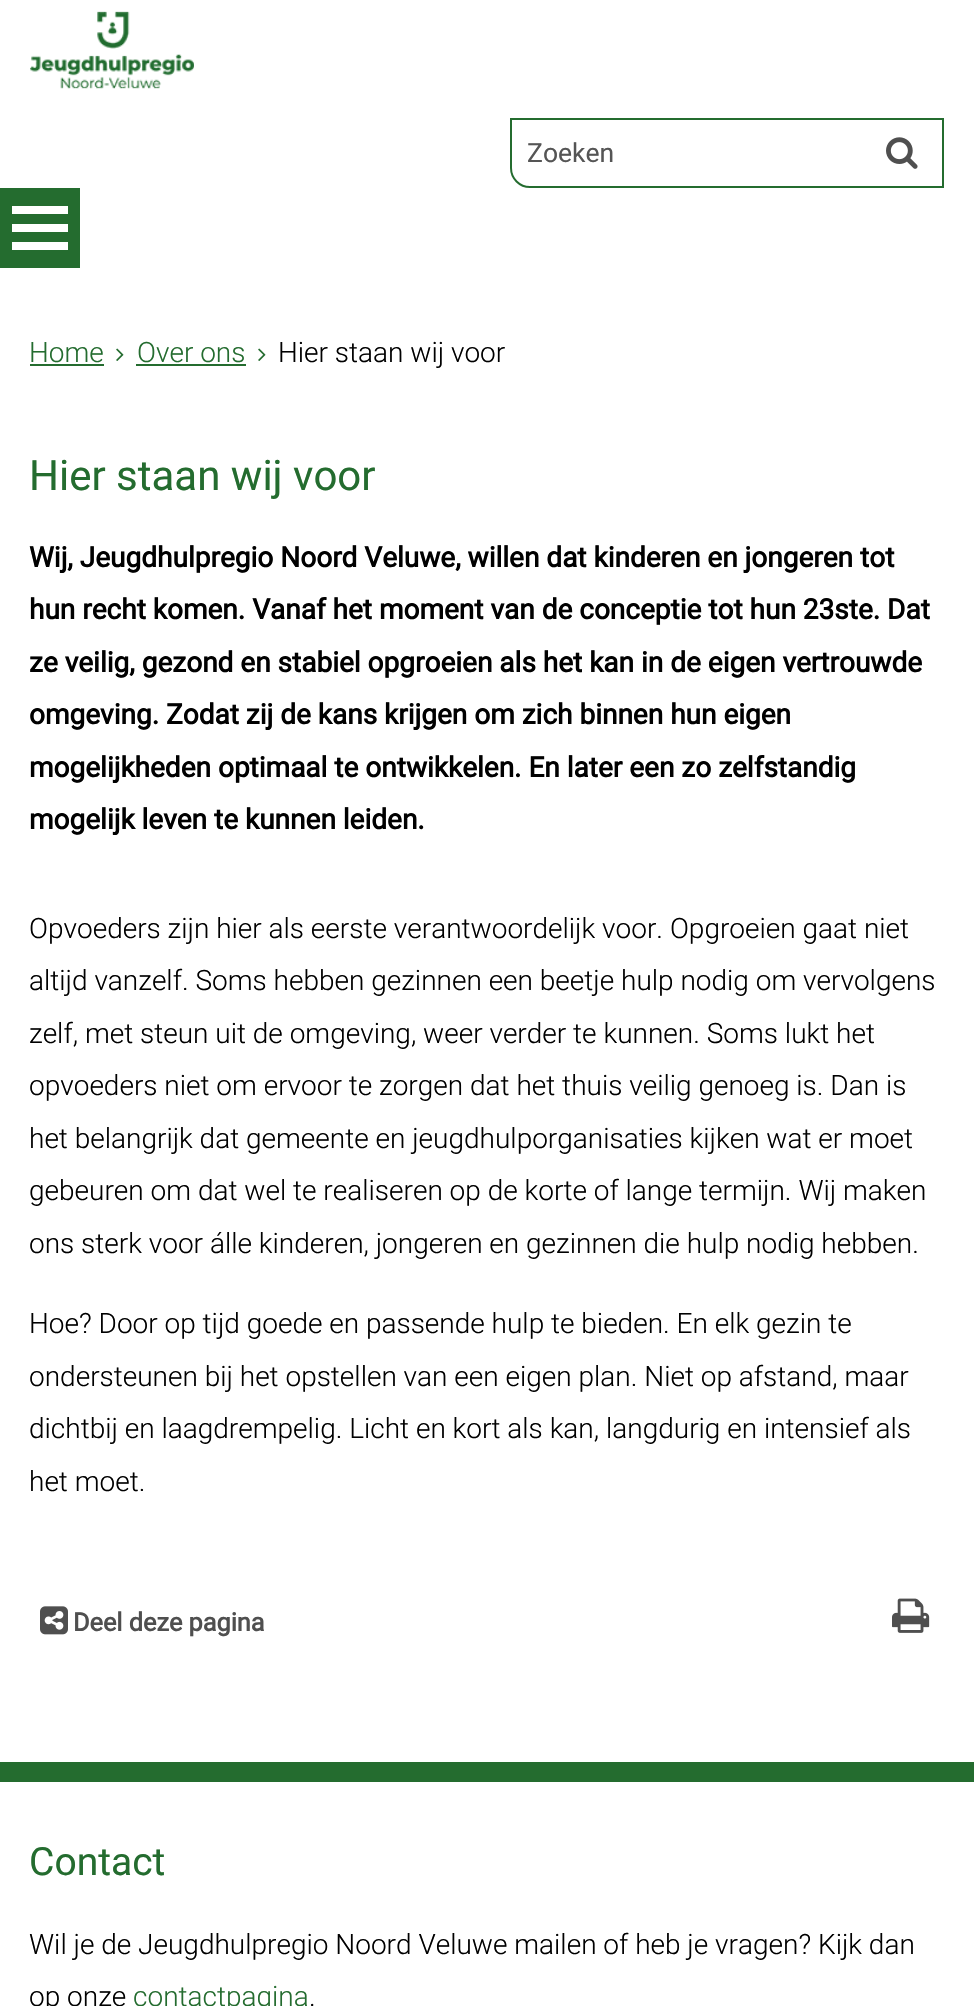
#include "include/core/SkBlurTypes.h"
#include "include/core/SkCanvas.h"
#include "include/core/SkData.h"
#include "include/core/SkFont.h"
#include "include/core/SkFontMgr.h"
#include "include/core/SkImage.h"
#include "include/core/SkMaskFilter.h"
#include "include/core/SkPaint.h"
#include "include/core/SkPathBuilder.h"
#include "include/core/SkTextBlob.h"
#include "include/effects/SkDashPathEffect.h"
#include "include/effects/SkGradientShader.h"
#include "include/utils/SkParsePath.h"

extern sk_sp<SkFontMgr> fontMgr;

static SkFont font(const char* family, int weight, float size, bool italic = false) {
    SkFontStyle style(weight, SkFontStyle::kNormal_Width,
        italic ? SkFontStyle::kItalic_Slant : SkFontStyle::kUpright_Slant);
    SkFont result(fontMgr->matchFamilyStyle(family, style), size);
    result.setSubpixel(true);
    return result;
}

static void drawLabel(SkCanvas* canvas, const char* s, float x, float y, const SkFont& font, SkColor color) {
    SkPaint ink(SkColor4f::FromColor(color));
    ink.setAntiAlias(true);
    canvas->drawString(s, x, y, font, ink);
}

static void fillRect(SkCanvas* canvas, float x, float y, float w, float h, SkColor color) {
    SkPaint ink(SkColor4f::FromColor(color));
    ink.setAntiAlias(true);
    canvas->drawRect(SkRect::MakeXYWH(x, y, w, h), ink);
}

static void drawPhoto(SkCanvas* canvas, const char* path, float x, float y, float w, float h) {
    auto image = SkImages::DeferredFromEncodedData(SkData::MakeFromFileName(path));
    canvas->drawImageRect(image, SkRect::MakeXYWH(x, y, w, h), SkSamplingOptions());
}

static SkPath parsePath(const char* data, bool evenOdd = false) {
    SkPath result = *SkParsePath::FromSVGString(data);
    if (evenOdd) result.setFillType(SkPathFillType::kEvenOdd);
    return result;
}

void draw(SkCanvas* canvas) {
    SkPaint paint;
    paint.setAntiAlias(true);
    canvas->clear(0xFFFFFFFF);
    drawPhoto(canvas, "assets/img1.png", 30, 11, 164, 78);
    paint.setStroke(true);
    paint.setStrokeWidth(2);
    paint.setColor(0xFF246C2F);
    canvas->drawPath(parsePath("M511 119H943V187H530C519.5 187 511 178.5 511 168Z"), paint);
    SkFont font1 = font("Roboto", 400, 26.5f);
    drawLabel(canvas, "Zoeken", 527, 162, font1, 0xFF555555);
    drawPhoto(canvas, "assets/img2.png", 886, 137, 32, 32);
    fillRect(canvas, 0, 188, 80, 80, 0xFF246C2F);
    fillRect(canvas, 12, 242, 56, 8, 0xFFFFFFFF);
    fillRect(canvas, 12, 224, 56, 8, 0xFFFFFFFF);
    fillRect(canvas, 12, 206, 56, 8, 0xFFFFFFFF);
    SkFont font2 = font("Roboto", 300, 28);
    drawLabel(canvas, "Home", 29, 362, font2, 0xFF246C2F);
    fillRect(canvas, 30, 364, 74, 2, 0xFF246C2F);
    drawPhoto(canvas, "assets/img3.png", 116, 348, 8, 13);
    drawLabel(canvas, "Over ons", 137, 362, font2, 0xFF246C2F);
    fillRect(canvas, 136, 364, 110, 2, 0xFF246C2F);
    drawPhoto(canvas, "assets/img3.png", 258, 348, 8, 13);
    drawLabel(canvas, "Hier staan wij voor", 278, 362, font2, 0xFF000000);
    SkFont font3 = font("Roboto", 400, 42);
    drawLabel(canvas, "Hier staan wij voor", 29, 490, font3, 0xFF246C2F);
    SkFont font4 = font("Roboto", 700, 28);
    drawLabel(canvas, "Wij, Jeugdhulpregio Noord Veluwe, willen dat kinderen en jongeren tot", 29, 567, font4, 0xFF000000);
    drawLabel(canvas, "hun recht komen. Vanaf het moment van de conceptie tot hun 23ste. Dat", 29, 619, font4, 0xFF000000);
    drawLabel(canvas, "ze veilig, gezond en stabiel opgroeien als het kan in de eigen vertrouwde", 29, 672, font4, 0xFF000000);
    drawLabel(canvas, "omgeving. Zodat zij de kans krijgen om zich binnen hun eigen", 29, 724, font4, 0xFF000000);
    drawLabel(canvas, "mogelijkheden optimaal te ontwikkelen. En later een zo zelfstandig", 29, 777, font4, 0xFF000000);
    drawLabel(canvas, "mogelijk leven te kunnen leiden.", 29, 829, font4, 0xFF000000);
    drawLabel(canvas, "Opvoeders zijn hier als eerste verantwoordelijk voor. Opgroeien gaat niet", 29, 938, font2, 0xFF000000);
    drawLabel(canvas, "altijd vanzelf. Soms hebben gezinnen een beetje hulp nodig om vervolgens", 29, 990, font2, 0xFF000000);
    drawLabel(canvas, "zelf, met steun uit de omgeving, weer verder te kunnen. Soms lukt het", 29, 1043, font2, 0xFF000000);
    drawLabel(canvas, "opvoeders niet om ervoor te zorgen dat het thuis veilig genoeg is. Dan is", 29, 1095, font2, 0xFF000000);
    drawLabel(canvas, "het belangrijk dat gemeente en jeugdhulporganisaties kijken wat er moet", 29, 1148, font2, 0xFF000000);
    drawLabel(canvas, "gebeuren om dat wel te realiseren op de korte of lange termijn. Wij maken", 29, 1200, font2, 0xFF000000);
    drawLabel(canvas, "ons sterk voor álle kinderen, jongeren en gezinnen die hulp nodig hebben.", 29, 1253, font2, 0xFF000000);
    drawLabel(canvas, "Hoe? Door op tijd goede en passende hulp te bieden. En elk gezin te", 29, 1333, font2, 0xFF000000);
    drawLabel(canvas, "ondersteunen bij het opstellen van een eigen plan. Niet op afstand, maar", 29, 1386, font2, 0xFF000000);
    drawLabel(canvas, "dichtbij en laagdrempelig. Licht en kort als kan, langdurig en intensief als", 29, 1438, font2, 0xFF000000);
    drawLabel(canvas, "het moet.", 29, 1491, font2, 0xFF000000);
    drawPhoto(canvas, "assets/img4.png", 40, 1606, 28, 29);
    SkFont font5 = font("Roboto", 700, 25.25f);
    drawLabel(canvas, "Deel deze pagina", 73, 1631, font5, 0xFF4F4F4F);
    drawPhoto(canvas, "assets/img5.png", 892, 1598, 38, 35);
    fillRect(canvas, 0, 1762, 974, 20, 0xFF246C2F);
    SkFont font6 = font("Roboto", 400, 39);
    drawLabel(canvas, "Contact", 29, 1875, font6, 0xFF246C2F);
    drawLabel(canvas, "Wil je de Jeugdhulpregio Noord Veluwe mailen of heb je vragen? Kijk dan", 29, 1954, font2, 0xFF000000);
    drawLabel(canvas, "op onze", 29, 2006, font2, 0xFF000000);
    drawLabel(canvas, "contactpagina", 133, 2006, font2, 0xFF246C2F);
    drawLabel(canvas, ".", 309, 2006, font2, 0xFF000000);
}
